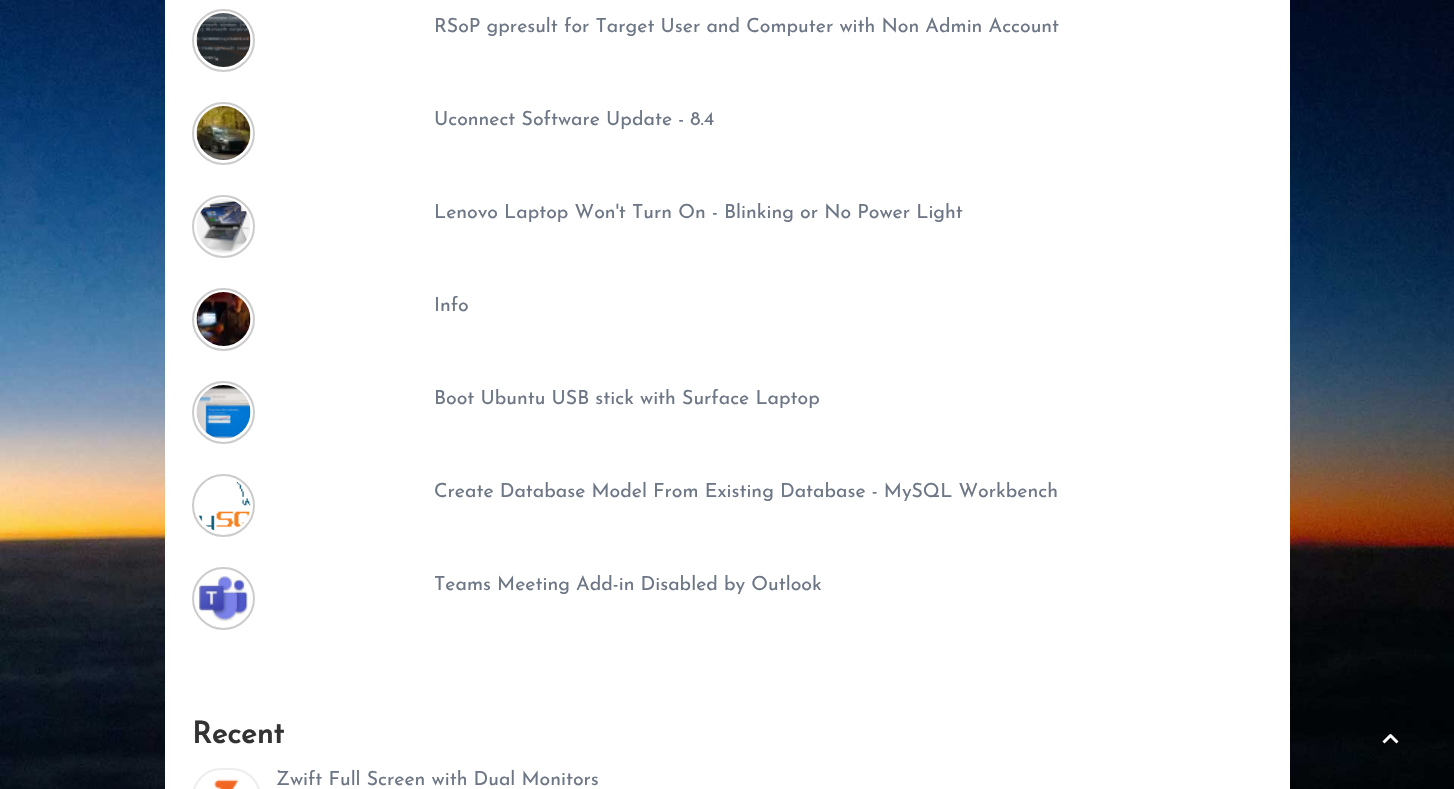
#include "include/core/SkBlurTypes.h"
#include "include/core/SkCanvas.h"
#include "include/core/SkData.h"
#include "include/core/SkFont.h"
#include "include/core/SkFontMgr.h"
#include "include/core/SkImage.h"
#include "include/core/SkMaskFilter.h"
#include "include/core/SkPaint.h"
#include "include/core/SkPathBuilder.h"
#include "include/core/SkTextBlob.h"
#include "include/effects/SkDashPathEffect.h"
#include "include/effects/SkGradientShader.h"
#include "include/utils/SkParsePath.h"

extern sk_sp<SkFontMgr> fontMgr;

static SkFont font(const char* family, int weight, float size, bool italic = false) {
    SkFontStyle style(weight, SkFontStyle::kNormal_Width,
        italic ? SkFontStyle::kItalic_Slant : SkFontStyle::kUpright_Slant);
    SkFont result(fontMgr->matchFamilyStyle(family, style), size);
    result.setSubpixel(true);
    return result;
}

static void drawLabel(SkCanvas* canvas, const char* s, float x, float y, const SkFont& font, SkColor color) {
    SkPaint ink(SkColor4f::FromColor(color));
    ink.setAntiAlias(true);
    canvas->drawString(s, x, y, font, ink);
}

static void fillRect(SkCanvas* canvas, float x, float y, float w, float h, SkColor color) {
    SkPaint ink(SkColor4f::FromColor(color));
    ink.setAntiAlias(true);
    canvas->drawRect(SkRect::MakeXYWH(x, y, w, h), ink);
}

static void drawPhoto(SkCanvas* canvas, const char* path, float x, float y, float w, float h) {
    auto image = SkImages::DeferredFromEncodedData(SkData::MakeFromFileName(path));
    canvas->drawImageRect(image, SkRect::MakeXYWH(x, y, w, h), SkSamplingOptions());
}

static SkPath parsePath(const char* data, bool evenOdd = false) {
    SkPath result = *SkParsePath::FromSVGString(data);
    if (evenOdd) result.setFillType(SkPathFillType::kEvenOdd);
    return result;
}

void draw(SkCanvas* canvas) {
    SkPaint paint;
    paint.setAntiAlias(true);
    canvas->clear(0xFFFFFFFF);
    drawPhoto(canvas, "assets/img1.png", 0, 0, 1454, 789);
    fillRect(canvas, 165, 0, 1125, 789, 0xFFFFFFFF);
    paint.setStroke(true);
    paint.setStrokeWidth(2);
    paint.setColor(0xFFCCCCCC);
    canvas->drawCircle(223.5f, 40.5f, 30.5f, paint);
    drawPhoto(canvas, "assets/img2.png", 196, 13, 55, 54);
    SkFont font1 = font("Josefin Sans", 100, 19.5f);
    drawLabel(canvas, "RSoP gpresult for Target User and Computer with Non Admin Account", 434, 32, font1, 0xFF6D7685);
    canvas->drawCircle(223.5f, 133.5f, 30.5f, paint);
    drawPhoto(canvas, "assets/img3.png", 196, 106, 55, 54);
    drawLabel(canvas, "Uconnect Software Update - 8.4", 434, 125, font1, 0xFF6D7685);
    canvas->drawCircle(223.5f, 226.5f, 30.5f, paint);
    drawPhoto(canvas, "assets/img4.png", 197, 199, 53, 54);
    drawLabel(canvas, "Lenovo Laptop Won't Turn On - Blinking or No Power Light", 434, 218, font1, 0xFF6D7685);
    canvas->drawCircle(223.5f, 319.5f, 30.5f, paint);
    drawPhoto(canvas, "assets/img5.png", 196, 292, 55, 54);
    drawLabel(canvas, "Info", 434, 311, font1, 0xFF6D7685);
    canvas->drawCircle(223.5f, 412.5f, 30.5f, paint);
    drawPhoto(canvas, "assets/img6.png", 196, 385, 55, 54);
    drawLabel(canvas, "Boot Ubuntu USB stick with Surface Laptop", 434, 404, font1, 0xFF6D7685);
    canvas->drawCircle(223.5f, 505.5f, 30.5f, paint);
    drawPhoto(canvas, "assets/img7.png", 198, 481, 53, 50);
    drawLabel(canvas, "Create Database Model From Existing Database - MySQL Workbench", 434, 497, font1, 0xFF6D7685);
    canvas->drawCircle(223.5f, 598.5f, 30.5f, paint);
    drawPhoto(canvas, "assets/img8.png", 198, 576, 50, 46);
    drawLabel(canvas, "Teams Meeting Add-in Disabled by Outlook", 434, 590, font1, 0xFF6D7685);
    SkFont font2 = font("Josefin Sans", 700, 30);
    drawLabel(canvas, "Recent", 192, 743, font2, 0xFF333333);
    paint.setColor(0xFFEEEEEE);
    canvas->drawRoundRect(SkRect::MakeXYWH(193, 769, 67, 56), 33.5f, 33.5f, paint);
    drawPhoto(canvas, "assets/img9.png", 214, 779, 25, 10);
    drawLabel(canvas, "Zwift Full Screen with Dual Monitors", 276, 785, font1, 0xFF6D7685);
    paint.setStrokeWidth(3);
    paint.setStrokeJoin(SkPaint::kRound_Join);
    paint.setColor(0xFFFFFFFF);
    canvas->drawPath(parsePath("M1383.5 742.5L1390.5 735.5L1397.5 742.5"), paint);
}
